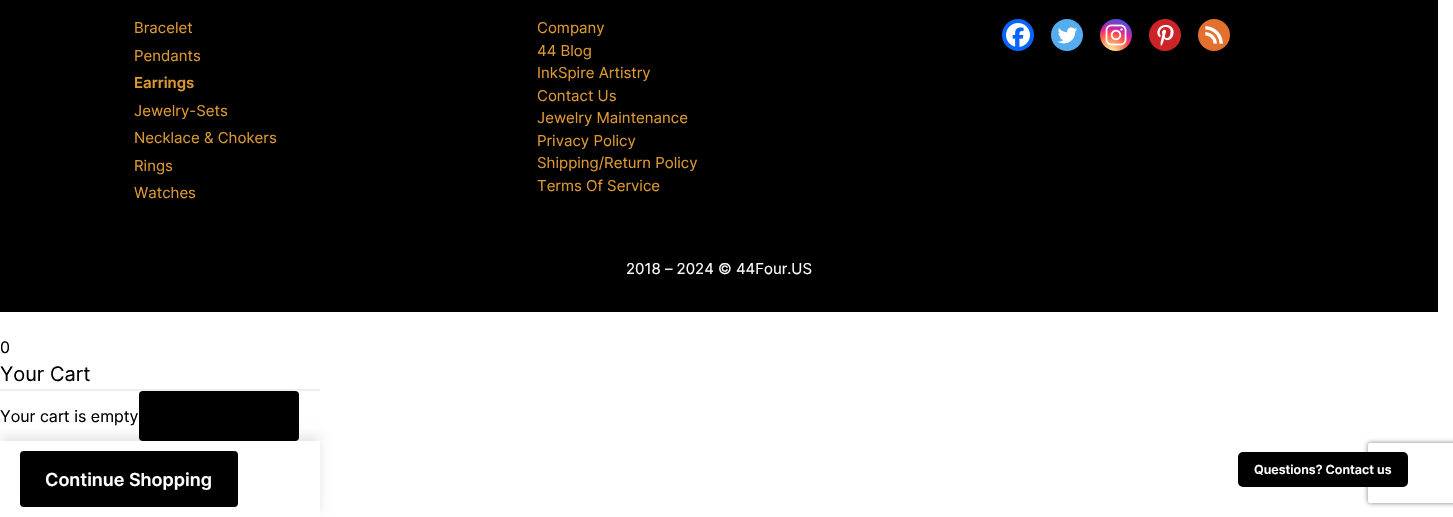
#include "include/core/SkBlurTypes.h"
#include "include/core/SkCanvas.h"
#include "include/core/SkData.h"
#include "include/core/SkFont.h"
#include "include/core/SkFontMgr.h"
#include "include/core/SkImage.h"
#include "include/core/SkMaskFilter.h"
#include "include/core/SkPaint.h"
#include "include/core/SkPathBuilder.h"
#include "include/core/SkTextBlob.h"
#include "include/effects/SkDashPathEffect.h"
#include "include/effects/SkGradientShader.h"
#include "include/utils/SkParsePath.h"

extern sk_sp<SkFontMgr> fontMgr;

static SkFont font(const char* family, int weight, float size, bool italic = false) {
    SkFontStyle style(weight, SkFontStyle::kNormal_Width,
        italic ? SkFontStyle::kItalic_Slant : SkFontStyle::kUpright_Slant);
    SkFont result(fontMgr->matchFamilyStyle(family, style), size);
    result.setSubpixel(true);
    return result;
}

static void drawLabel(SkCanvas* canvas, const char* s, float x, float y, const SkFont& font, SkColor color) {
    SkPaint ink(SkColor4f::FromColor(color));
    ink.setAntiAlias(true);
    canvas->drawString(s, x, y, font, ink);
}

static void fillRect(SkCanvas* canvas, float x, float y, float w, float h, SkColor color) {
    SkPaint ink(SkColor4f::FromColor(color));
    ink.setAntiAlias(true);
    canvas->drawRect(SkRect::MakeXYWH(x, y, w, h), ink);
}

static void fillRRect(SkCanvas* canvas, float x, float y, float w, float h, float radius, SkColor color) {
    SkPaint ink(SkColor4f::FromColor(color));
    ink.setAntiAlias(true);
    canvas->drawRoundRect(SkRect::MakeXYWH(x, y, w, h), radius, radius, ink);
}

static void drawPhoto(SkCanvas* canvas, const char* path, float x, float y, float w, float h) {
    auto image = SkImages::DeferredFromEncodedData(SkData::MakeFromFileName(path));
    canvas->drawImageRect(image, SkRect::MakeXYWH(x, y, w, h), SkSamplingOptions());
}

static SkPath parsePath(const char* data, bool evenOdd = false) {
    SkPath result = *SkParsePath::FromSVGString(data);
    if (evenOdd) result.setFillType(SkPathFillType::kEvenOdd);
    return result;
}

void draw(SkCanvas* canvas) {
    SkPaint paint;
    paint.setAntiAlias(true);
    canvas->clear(0xFFFFFFFF);
    fillRect(canvas, 0, 389, 320, 2, 0xFFEEEEEE);
    SkFont font1 = font("Inter", 400, 16);
    drawLabel(canvas, "0", 0, 353, font1, 0xFF000000);
    SkFont font2 = font("Inter", 400, 20);
    drawLabel(canvas, "Your Cart", 0, 381, font2, 0xFF000000);
    canvas->save();
    canvas->clipPath(parsePath("M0 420H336V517H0ZM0 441H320V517H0Z", true), true);
    paint.setColor(0x1A000000);
    paint.setMaskFilter(SkMaskFilter::MakeBlur(kNormal_SkBlurStyle, 5));
    canvas->drawRect(SkRect::MakeXYWH(0, 436, 320, 76), paint);
    paint.setMaskFilter(nullptr);
    canvas->restore();
    drawLabel(canvas, "Your cart is empty", 0, 422, font1, 0xFF000000);
    fillRRect(canvas, 139, 391, 160, 50, 4, 0xFF000000);
    fillRRect(canvas, 20, 451, 218, 56, 4, 0xFF000000);
    SkFont font3 = font("Inter", 600, 18);
    drawLabel(canvas, "Continue Shopping", 45, 486, font3, 0xFFFFFFFF);
    fillRect(canvas, 0, 0, 1438, 312, 0xFF000000);
    SkFont font4 = font("Inter", 400, 15);
    drawLabel(canvas, "Bracelet", 134, 33, font4, 0xFFDD9933);
    drawLabel(canvas, "Pendants", 134, 61, font4, 0xFFDD9933);
    SkFont font5 = font("Inter", 600, 15);
    drawLabel(canvas, "Earrings", 134, 88, font5, 0xFFDD9933);
    drawLabel(canvas, "Jewelry-Sets", 134, 116, font4, 0xFFDD9933);
    drawLabel(canvas, "Necklace & Chokers", 134, 143, font4, 0xFFDD9933);
    drawLabel(canvas, "Rings", 134, 171, font4, 0xFFDD9933);
    drawLabel(canvas, "Watches", 134, 198, font4, 0xFFDD9933);
    drawLabel(canvas, "Company", 537, 33, font4, 0xFFDD9933);
    drawLabel(canvas, "44 Blog", 537, 56, font4, 0xFFDD9933);
    drawLabel(canvas, "InkSpire Artistry", 537, 78, font4, 0xFFDD9933);
    drawLabel(canvas, "Contact Us", 537, 101, font4, 0xFFDD9933);
    drawLabel(canvas, "Jewelry Maintenance", 537, 123, font4, 0xFFDD9933);
    drawLabel(canvas, "Privacy Policy", 537, 146, font4, 0xFFDD9933);
    drawLabel(canvas, "Shipping/Return Policy", 537, 168, font4, 0xFFDD9933);
    drawLabel(canvas, "Terms Of Service", 537, 191, font4, 0xFFDD9933);
    paint.setColor(0xFF0765FE);
    canvas->drawCircle(1018, 35, 16, paint);
    drawPhoto(canvas, "assets/img1.png", 1006, 23, 24, 24);
    paint.setColor(0xFF55ACEE);
    canvas->drawCircle(1067, 35, 16, paint);
    drawPhoto(canvas, "assets/img2.png", 1057, 27, 21, 17);
    {
        const SkColor colors[] = {0xFFFDF497, 0xFFFDF497, 0xFFFD5949, 0xFFD6249F, 0xFF285AEB};
        const float stops[] = {0, 0.05f, 0.45f, 0.6f, 0.9f};
        paint.setShader(SkGradientShader::MakeRadial({1110, 53}, 41, colors, stops, 5, SkTileMode::kClamp));
        paint.setAlpha(255);
    }
    canvas->drawCircle(1116, 35, 16, paint);
    drawPhoto(canvas, "assets/img3.png", 1105, 24, 22, 22);
    paint.setShader(nullptr);
    paint.setColor(0xFFCC2329);
    canvas->drawCircle(1165, 35, 16, paint);
    drawPhoto(canvas, "assets/img4.png", 1157, 24, 17, 22);
    paint.setColor(0xFFE3702D);
    canvas->drawCircle(1214, 35, 16, paint);
    drawPhoto(canvas, "assets/img5.png", 1205, 26, 18, 18);
    drawLabel(canvas, "2018 – 2024 © 44Four.US", 626, 274, font4, 0xFFFFFFFF);
    canvas->save();
    canvas->clipPath(parsePath("M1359 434H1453V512H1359ZM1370 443H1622C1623 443 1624 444 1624 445V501C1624 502 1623 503 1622 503H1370C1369 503 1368 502 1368 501V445C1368 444 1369 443 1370 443Z", true), true);
    paint.setColor(0xFF808080);
    paint.setMaskFilter(SkMaskFilter::MakeBlur(kNormal_SkBlurStyle, 2.5f));
    canvas->drawRoundRect(SkRect::MakeXYWH(1368, 443, 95, 60), 2, 2, paint);
    paint.setMaskFilter(nullptr);
    canvas->restore();
    fillRRect(canvas, 1238, 452, 170, 35, 5, 0xFF000000);
    SkFont font6 = font("Inter", 600, 12.5f);
    drawLabel(canvas, "Questions? Contact us", 1254, 474, font6, 0xFFFFFFFF);
}
